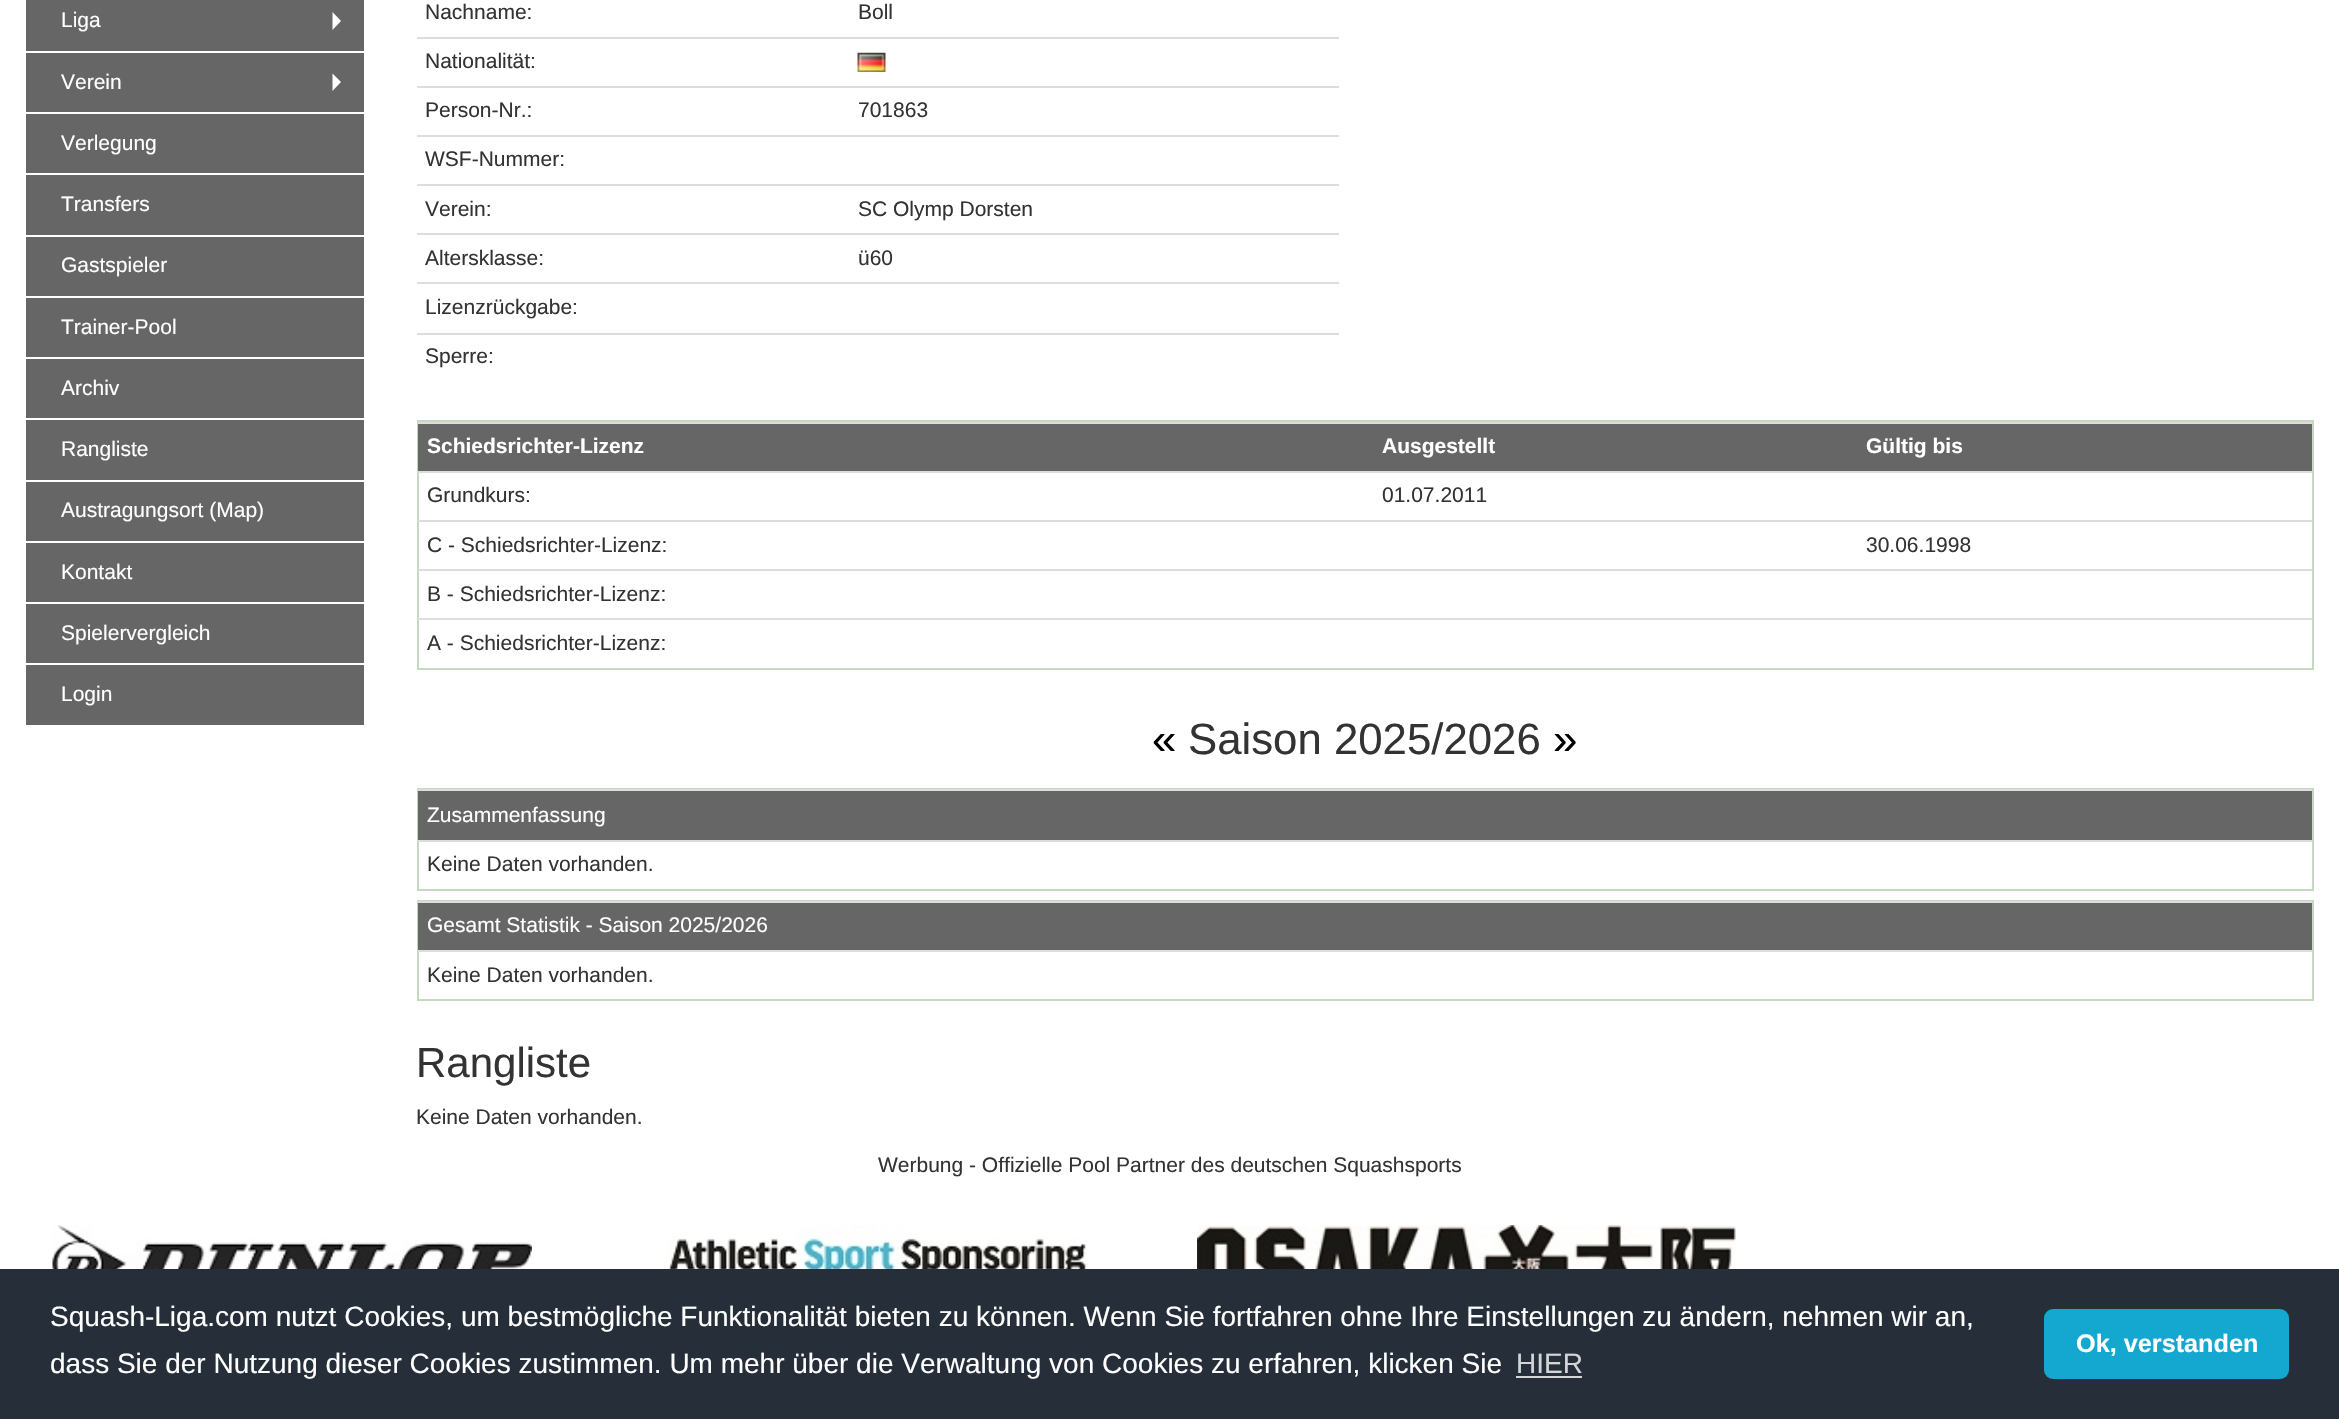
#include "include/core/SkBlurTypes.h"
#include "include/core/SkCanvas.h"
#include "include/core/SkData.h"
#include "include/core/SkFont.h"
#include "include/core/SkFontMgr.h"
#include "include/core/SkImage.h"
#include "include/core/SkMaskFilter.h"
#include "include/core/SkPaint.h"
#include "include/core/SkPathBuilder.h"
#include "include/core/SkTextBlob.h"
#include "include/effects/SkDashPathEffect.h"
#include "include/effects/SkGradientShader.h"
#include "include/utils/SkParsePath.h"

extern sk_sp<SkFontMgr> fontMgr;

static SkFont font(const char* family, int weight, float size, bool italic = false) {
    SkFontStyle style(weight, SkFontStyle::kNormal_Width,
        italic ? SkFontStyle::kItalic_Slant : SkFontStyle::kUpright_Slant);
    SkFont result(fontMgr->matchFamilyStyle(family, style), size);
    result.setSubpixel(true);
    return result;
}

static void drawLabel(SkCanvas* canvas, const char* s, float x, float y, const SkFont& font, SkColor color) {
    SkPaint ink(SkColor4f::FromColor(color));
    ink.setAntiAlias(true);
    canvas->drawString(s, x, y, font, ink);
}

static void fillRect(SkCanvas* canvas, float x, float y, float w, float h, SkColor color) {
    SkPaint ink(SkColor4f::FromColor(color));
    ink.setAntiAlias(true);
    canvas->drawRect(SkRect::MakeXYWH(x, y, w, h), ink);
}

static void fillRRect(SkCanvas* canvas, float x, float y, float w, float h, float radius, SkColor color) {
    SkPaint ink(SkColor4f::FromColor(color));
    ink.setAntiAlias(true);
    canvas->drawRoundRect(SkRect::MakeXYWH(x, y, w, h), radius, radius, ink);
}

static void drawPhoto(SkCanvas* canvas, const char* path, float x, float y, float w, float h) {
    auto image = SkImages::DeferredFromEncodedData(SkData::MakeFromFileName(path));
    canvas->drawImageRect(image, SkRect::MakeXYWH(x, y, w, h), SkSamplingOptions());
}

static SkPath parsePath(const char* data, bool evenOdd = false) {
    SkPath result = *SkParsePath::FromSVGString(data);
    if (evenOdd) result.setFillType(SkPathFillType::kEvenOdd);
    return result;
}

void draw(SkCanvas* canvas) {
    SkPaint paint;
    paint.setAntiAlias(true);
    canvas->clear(0xFFFFFFFF);
    fillRect(canvas, 26, 0, 338, 725, 0xFF666666);
    fillRect(canvas, 26, 51, 338, 2, 0xFFFFFFFF);
    SkFont font1 = font("Liberation Sans", 400, 21);
    drawLabel(canvas, "Liga", 61, 27, font1, 0xFFFFFFFF);
    paint.setColor(0xFFFFFFFF);
    canvas->drawPath(parsePath("M332.5 30V12L341 21Z"), paint);
    fillRect(canvas, 26, 112, 338, 2, 0xFFFFFFFF);
    drawLabel(canvas, "Verein", 61, 89, font1, 0xFFFFFFFF);
    canvas->drawPath(parsePath("M332.5 91V73.5L341 82Z"), paint);
    fillRect(canvas, 26, 173, 338, 2, 0xFFFFFFFF);
    drawLabel(canvas, "Verlegung", 61, 150, font1, 0xFFFFFFFF);
    fillRect(canvas, 26, 235, 338, 2, 0xFFFFFFFF);
    drawLabel(canvas, "Transfers", 61, 211, font1, 0xFFFFFFFF);
    fillRect(canvas, 26, 296, 338, 2, 0xFFFFFFFF);
    drawLabel(canvas, "Gastspieler", 61, 272, font1, 0xFFFFFFFF);
    fillRect(canvas, 26, 357, 338, 2, 0xFFFFFFFF);
    drawLabel(canvas, "Trainer-Pool", 61, 334, font1, 0xFFFFFFFF);
    fillRect(canvas, 26, 418, 338, 2, 0xFFFFFFFF);
    drawLabel(canvas, "Archiv", 61, 395, font1, 0xFFFFFFFF);
    fillRect(canvas, 26, 480, 338, 2, 0xFFFFFFFF);
    drawLabel(canvas, "Rangliste", 61, 456, font1, 0xFFFFFFFF);
    fillRect(canvas, 26, 541, 338, 2, 0xFFFFFFFF);
    drawLabel(canvas, "Austragungsort (Map)", 61, 517, font1, 0xFFFFFFFF);
    fillRect(canvas, 26, 602, 338, 2, 0xFFFFFFFF);
    drawLabel(canvas, "Kontakt", 61, 579, font1, 0xFFFFFFFF);
    fillRect(canvas, 26, 663, 338, 2, 0xFFFFFFFF);
    drawLabel(canvas, "Spielervergleich", 61, 640, font1, 0xFFFFFFFF);
    drawLabel(canvas, "Login", 61, 701, font1, 0xFFFFFFFF);
    drawLabel(canvas, "Nachname:", 425, 19, font1, 0xFF333333);
    drawLabel(canvas, "Boll", 858, 19, font1, 0xFF333333);
    fillRect(canvas, 417, 37, 922, 2, 0xFFDDDDDD);
    drawLabel(canvas, "Nationalität:", 425, 68, font1, 0xFF333333);
    drawPhoto(canvas, "assets/img1.png", 857, 52, 29, 20);
    fillRect(canvas, 417, 86, 922, 2, 0xFFDDDDDD);
    drawLabel(canvas, "Person-Nr.:", 425, 117, font1, 0xFF333333);
    drawLabel(canvas, "701863", 858, 117, font1, 0xFF333333);
    fillRect(canvas, 417, 135, 922, 2, 0xFFDDDDDD);
    drawLabel(canvas, "WSF-Nummer:", 425, 166, font1, 0xFF333333);
    fillRect(canvas, 417, 184, 922, 2, 0xFFDDDDDD);
    drawLabel(canvas, "Verein:", 425, 216, font1, 0xFF333333);
    drawLabel(canvas, "SC Olymp Dorsten", 858, 216, font1, 0xFF333333);
    fillRect(canvas, 417, 233, 922, 2, 0xFFDDDDDD);
    drawLabel(canvas, "Altersklasse:", 425, 265, font1, 0xFF333333);
    drawLabel(canvas, "ü60", 858, 265, font1, 0xFF333333);
    fillRect(canvas, 417, 282, 922, 2, 0xFFDDDDDD);
    drawLabel(canvas, "Lizenzrückgabe:", 425, 314, font1, 0xFF333333);
    fillRect(canvas, 417, 333, 922, 2, 0xFFDDDDDD);
    drawLabel(canvas, "Sperre:", 425, 363, font1, 0xFF333333);
    paint.setStroke(true);
    paint.setStrokeWidth(2);
    paint.setColor(0xFFC5D8C0);
    canvas->drawRect(SkRect::MakeXYWH(418, 421, 1895, 248), paint);
    fillRect(canvas, 418, 424, 1894, 47, 0xFF666666);
    fillRect(canvas, 418, 422, 1894, 2, 0xFFDDDDDD);
    SkFont font2 = font("Liberation Sans", 700, 21);
    drawLabel(canvas, "Schiedsrichter-Lizenz", 427, 453, font2, 0xFFFFFFFF);
    drawLabel(canvas, "Ausgestellt", 1382, 453, font2, 0xFFFFFFFF);
    drawLabel(canvas, "Gültig bis", 1866, 453, font2, 0xFFFFFFFF);
    fillRect(canvas, 418, 471, 1894, 2, 0xFFDDDDDD);
    drawLabel(canvas, "Grundkurs:", 427, 502, font1, 0xFF333333);
    drawLabel(canvas, "01.07.2011", 1382, 502, font1, 0xFF333333);
    fillRect(canvas, 418, 520, 1894, 2, 0xFFDDDDDD);
    drawLabel(canvas, "C - Schiedsrichter-Lizenz:", 427, 552, font1, 0xFF333333);
    drawLabel(canvas, "30.06.1998", 1866, 552, font1, 0xFF333333);
    fillRect(canvas, 418, 569, 1894, 2, 0xFFDDDDDD);
    drawLabel(canvas, "B - Schiedsrichter-Lizenz:", 427, 601, font1, 0xFF333333);
    fillRect(canvas, 418, 618, 1894, 2, 0xFFDDDDDD);
    drawLabel(canvas, "A - Schiedsrichter-Lizenz:", 427, 650, font1, 0xFF333333);
    SkFont font3 = font("Liberation Sans", 400, 43.75f);
    drawLabel(canvas, "«", 1152, 754, font3, 0xFF000000);
    drawLabel(canvas, "Saison 2025/2026", 1188, 754, font3, 0xFF333333);
    drawLabel(canvas, "»", 1553, 754, font3, 0xFF000000);
    canvas->drawRect(SkRect::MakeXYWH(418, 789, 1895, 101), paint);
    fillRect(canvas, 418, 791, 1894, 49, 0xFF666666);
    fillRect(canvas, 418, 789, 1894, 2, 0xFFDDDDDD);
    drawLabel(canvas, "Zusammenfassung", 427, 822, font1, 0xFFFFFFFF);
    fillRect(canvas, 418, 840, 1894, 2, 0xFFDDDDDD);
    drawLabel(canvas, "Keine Daten vorhanden.", 427, 871, font1, 0xFF333333);
    canvas->drawRect(SkRect::MakeXYWH(418, 901, 1895, 99), paint);
    fillRect(canvas, 418, 903, 1894, 47, 0xFF666666);
    fillRect(canvas, 418, 901, 1894, 2, 0xFFDDDDDD);
    drawLabel(canvas, "Gesamt Statistik - Saison 2025/2026", 427, 932, font1, 0xFFFFFFFF);
    fillRect(canvas, 418, 950, 1894, 2, 0xFFDDDDDD);
    drawLabel(canvas, "Keine Daten vorhanden.", 427, 982, font1, 0xFF333333);
    SkFont font4 = font("Liberation Sans", 400, 42);
    drawLabel(canvas, "Rangliste", 416, 1077, font4, 0xFF333333);
    drawLabel(canvas, "Keine Daten vorhanden.", 416, 1124, font1, 0xFF333333);
    drawLabel(canvas, "Werbung - Offizielle Pool Partner des deutschen Squashsports", 878, 1172, font1, 0xFF333333);
    drawPhoto(canvas, "assets/img2.png", 52, 1225, 480, 44);
    drawPhoto(canvas, "assets/img3.png", 654, 1225, 434, 44);
    drawPhoto(canvas, "assets/img4.png", 1197, 1225, 539, 44);
    fillRect(canvas, 0, 1269, 2339, 150, 0xFF252E39);
    SkFont font5 = font("Liberation Sans", 400, 28);
    drawLabel(canvas, "Squash-Liga.com nutzt Cookies, um bestmögliche Funktionalität bieten zu können. Wenn Sie fortfahren ohne Ihre Einstellungen zu ändern, nehmen wir an,", 50, 1326, font5, 0xFFFFFFFF);
    drawLabel(canvas, "dass Sie der Nutzung dieser Cookies zustimmen. Um mehr über die Verwaltung von Cookies zu erfahren, klicken Sie", 50, 1373, font5, 0xFFFFFFFF);
    drawLabel(canvas, "HIER", 1516, 1373, font5, 0xFFD3D5D7);
    fillRect(canvas, 1516, 1376, 66, 2, 0xFFD3D5D7);
    fillRRect(canvas, 2044, 1309, 245, 70, 9, 0xFF14A7D0);
    SkFont font6 = font("Liberation Sans", 700, 25.25f);
    drawLabel(canvas, "Ok, verstanden", 2076, 1352, font6, 0xFFFFFFFF);
}
